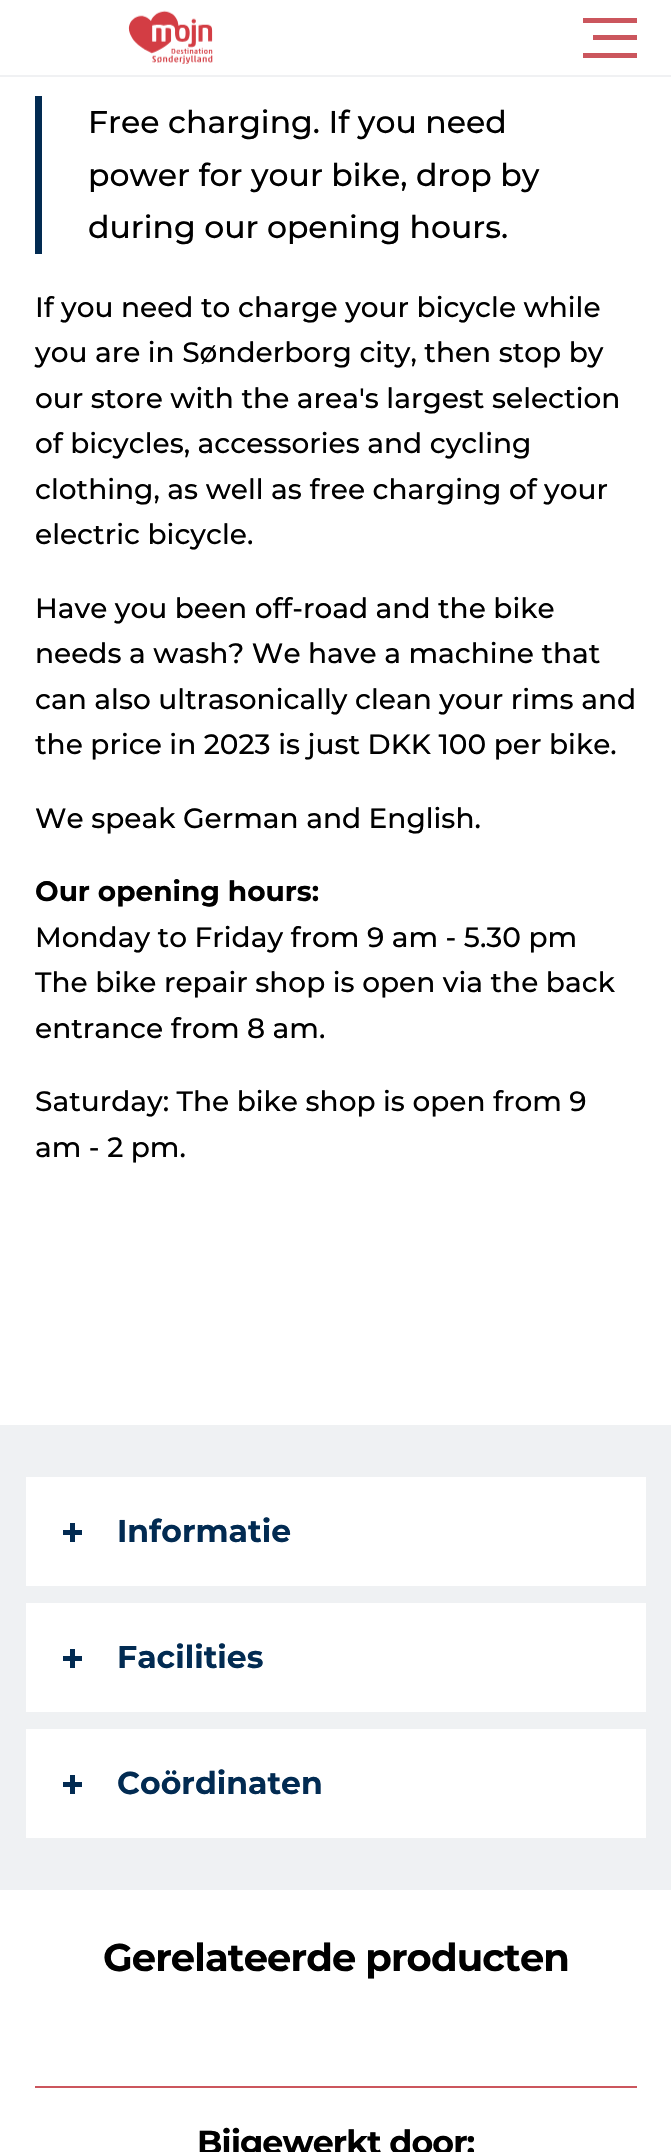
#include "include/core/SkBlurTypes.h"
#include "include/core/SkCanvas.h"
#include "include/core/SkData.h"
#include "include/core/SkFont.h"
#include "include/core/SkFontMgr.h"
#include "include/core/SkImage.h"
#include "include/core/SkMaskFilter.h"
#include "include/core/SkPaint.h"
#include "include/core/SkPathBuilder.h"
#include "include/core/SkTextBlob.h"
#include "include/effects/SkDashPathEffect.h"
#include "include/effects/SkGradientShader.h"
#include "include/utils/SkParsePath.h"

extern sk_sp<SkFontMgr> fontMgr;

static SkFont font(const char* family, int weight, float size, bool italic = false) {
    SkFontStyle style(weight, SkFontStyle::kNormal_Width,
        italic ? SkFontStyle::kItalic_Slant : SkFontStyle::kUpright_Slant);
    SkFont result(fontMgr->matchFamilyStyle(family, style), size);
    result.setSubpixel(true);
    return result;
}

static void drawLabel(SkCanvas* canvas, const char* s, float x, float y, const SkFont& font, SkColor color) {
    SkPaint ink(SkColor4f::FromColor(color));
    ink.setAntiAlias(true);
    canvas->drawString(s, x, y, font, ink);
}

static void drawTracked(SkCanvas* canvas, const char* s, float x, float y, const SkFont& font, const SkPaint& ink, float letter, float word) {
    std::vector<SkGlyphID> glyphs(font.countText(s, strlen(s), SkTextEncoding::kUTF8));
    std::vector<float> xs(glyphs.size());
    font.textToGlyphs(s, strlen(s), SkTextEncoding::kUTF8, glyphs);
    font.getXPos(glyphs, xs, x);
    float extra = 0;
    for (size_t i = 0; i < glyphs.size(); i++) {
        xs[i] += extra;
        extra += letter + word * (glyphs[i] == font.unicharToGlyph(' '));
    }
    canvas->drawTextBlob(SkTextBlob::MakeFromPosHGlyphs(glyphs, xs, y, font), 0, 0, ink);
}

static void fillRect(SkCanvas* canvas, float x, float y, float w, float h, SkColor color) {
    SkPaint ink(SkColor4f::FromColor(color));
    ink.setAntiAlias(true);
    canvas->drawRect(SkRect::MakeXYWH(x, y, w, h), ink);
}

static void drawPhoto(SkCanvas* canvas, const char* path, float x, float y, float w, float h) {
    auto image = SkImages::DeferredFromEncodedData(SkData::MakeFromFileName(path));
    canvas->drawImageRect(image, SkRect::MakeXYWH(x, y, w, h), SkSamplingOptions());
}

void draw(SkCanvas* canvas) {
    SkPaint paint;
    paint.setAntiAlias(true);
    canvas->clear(0xFFFFFFFF);
    fillRect(canvas, 0, 75, 671, 2, 0xFFF0F1F3);
    drawPhoto(canvas, "assets/img1.png", 128, 10, 85, 54);
    fillRect(canvas, 583, 18, 54, 5, 0xFFCB565D);
    fillRect(canvas, 593, 35, 44, 5, 0xFFCB565D);
    fillRect(canvas, 583, 53, 54, 5, 0xFFCB565D);
    fillRect(canvas, 35, 96, 7, 158, 0xFF022B52);
    SkFont font1 = font("Montserrat", 500, 31.5f);
    drawLabel(canvas, "Free charging. If you need", 88, 133, font1, 0xFF000000);
    drawLabel(canvas, "power for your bike, drop by", 88, 186, font1, 0xFF000000);
    drawLabel(canvas, "during our opening hours.", 88, 238, font1, 0xFF000000);
    SkFont font2 = font("Montserrat", 500, 28);
    drawLabel(canvas, "If you need to charge your bicycle while", 35, 317, font2, 0xFF000000);
    drawLabel(canvas, "you are in Sønderborg city, then stop by", 35, 362, font2, 0xFF000000);
    drawLabel(canvas, "our store with the area's largest selection", 35, 408, font2, 0xFF000000);
    drawLabel(canvas, "of bicycles, accessories and cycling", 35, 453, font2, 0xFF000000);
    drawLabel(canvas, "clothing, as well as free charging of your", 35, 499, font2, 0xFF000000);
    drawLabel(canvas, "electric bicycle.", 35, 544, font2, 0xFF000000);
    drawLabel(canvas, "Have you been off-road and the bike", 35, 618, font2, 0xFF000000);
    drawLabel(canvas, "needs a wash? We have a machine that", 35, 663, font2, 0xFF000000);
    drawLabel(canvas, "can also ultrasonically clean your rims and", 35, 709, font2, 0xFF000000);
    drawLabel(canvas, "the price in 2023 is just DKK 100 per bike.", 35, 754, font2, 0xFF000000);
    drawLabel(canvas, "We speak German and English.", 35, 828, font2, 0xFF000000);
    SkFont font3 = font("Montserrat", 700, 28);
    drawLabel(canvas, "Our opening hours:", 35, 901, font3, 0xFF000000);
    drawLabel(canvas, "Monday to Friday from 9 am - 5.30 pm", 35, 947, font2, 0xFF000000);
    drawLabel(canvas, "The bike repair shop is open via the back", 35, 992, font2, 0xFF000000);
    drawLabel(canvas, "entrance from 8 am.", 35, 1038, font2, 0xFF000000);
    drawLabel(canvas, "Saturday: The bike shop is open from 9", 35, 1111, font2, 0xFF000000);
    drawLabel(canvas, "am - 2 pm.", 35, 1157, font2, 0xFF000000);
    fillRect(canvas, 0, 1425, 671, 465, 0xFFEFF1F3);
    fillRect(canvas, 26, 1477, 620, 109, 0xFFFFFFFF);
    fillRect(canvas, 63, 1530, 19, 5, 0xFF022B52);
    fillRect(canvas, 70, 1523, 5, 19, 0xFF022B52);
    SkFont font4 = font("Montserrat", 700, 31.5f);
    drawLabel(canvas, "Informatie", 117, 1542, font4, 0xFF022B52);
    fillRect(canvas, 26, 1603, 620, 109, 0xFFFFFFFF);
    fillRect(canvas, 63, 1656, 19, 5, 0xFF022B52);
    fillRect(canvas, 70, 1649, 5, 19, 0xFF022B52);
    drawLabel(canvas, "Facilities", 117, 1668, font4, 0xFF022B52);
    fillRect(canvas, 26, 1729, 620, 109, 0xFFFFFFFF);
    fillRect(canvas, 63, 1782, 19, 5, 0xFF022B52);
    fillRect(canvas, 70, 1775, 5, 19, 0xFF022B52);
    drawLabel(canvas, "Coördinaten", 117, 1794, font4, 0xFF022B52);
    SkFont font5 = font("Montserrat", 700, 38.5f);
    paint.setColor(0xFF000000);
    drawTracked(canvas, "Gerelateerde producten", 103, 1971, font5, paint, -0.9f, 0);
    fillRect(canvas, 35, 2086, 602, 2, 0xFFCB565D);
    SkFont font6 = font("Montserrat", 700, 33.25f);
    drawTracked(canvas, "Bijgewerkt door:", 197, 2154, font6, paint, -0.9f, 0);
}
